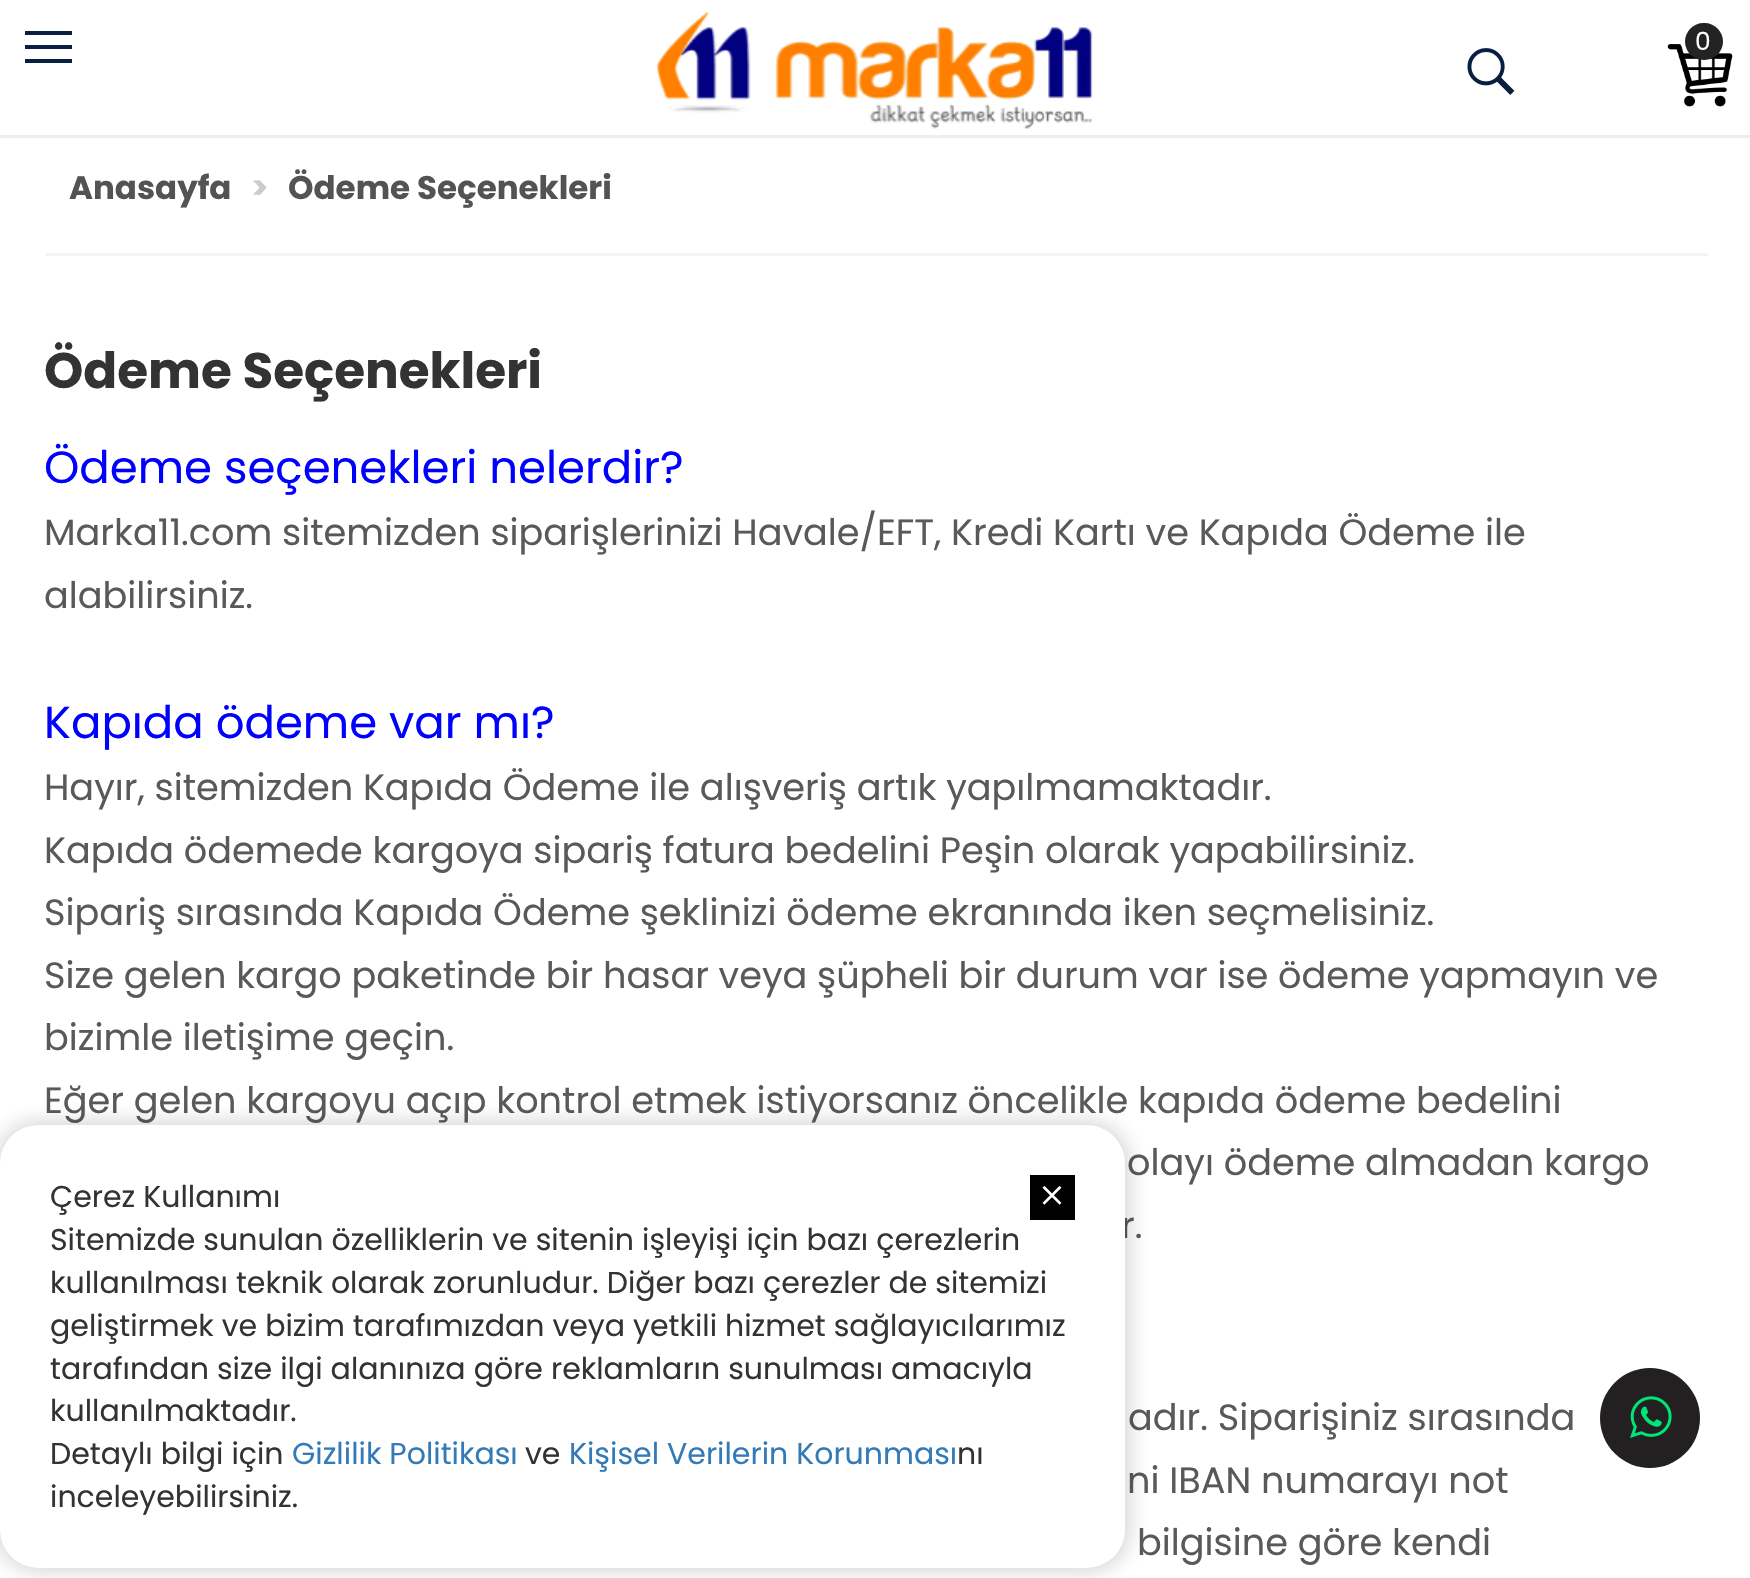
#include "include/core/SkBlurTypes.h"
#include "include/core/SkCanvas.h"
#include "include/core/SkData.h"
#include "include/core/SkFont.h"
#include "include/core/SkFontMgr.h"
#include "include/core/SkImage.h"
#include "include/core/SkMaskFilter.h"
#include "include/core/SkPaint.h"
#include "include/core/SkPathBuilder.h"
#include "include/core/SkTextBlob.h"
#include "include/effects/SkDashPathEffect.h"
#include "include/effects/SkGradientShader.h"
#include "include/utils/SkParsePath.h"

extern sk_sp<SkFontMgr> fontMgr;

static SkFont font(const char* family, int weight, float size, bool italic = false) {
    SkFontStyle style(weight, SkFontStyle::kNormal_Width,
        italic ? SkFontStyle::kItalic_Slant : SkFontStyle::kUpright_Slant);
    SkFont result(fontMgr->matchFamilyStyle(family, style), size);
    result.setSubpixel(true);
    return result;
}

static void drawLabel(SkCanvas* canvas, const char* s, float x, float y, const SkFont& font, SkColor color) {
    SkPaint ink(SkColor4f::FromColor(color));
    ink.setAntiAlias(true);
    canvas->drawString(s, x, y, font, ink);
}

static void fillRect(SkCanvas* canvas, float x, float y, float w, float h, SkColor color) {
    SkPaint ink(SkColor4f::FromColor(color));
    ink.setAntiAlias(true);
    canvas->drawRect(SkRect::MakeXYWH(x, y, w, h), ink);
}

static void fillRRect(SkCanvas* canvas, float x, float y, float w, float h, float radius, SkColor color) {
    SkPaint ink(SkColor4f::FromColor(color));
    ink.setAntiAlias(true);
    canvas->drawRoundRect(SkRect::MakeXYWH(x, y, w, h), radius, radius, ink);
}

static void drawPhoto(SkCanvas* canvas, const char* path, float x, float y, float w, float h) {
    auto image = SkImages::DeferredFromEncodedData(SkData::MakeFromFileName(path));
    canvas->drawImageRect(image, SkRect::MakeXYWH(x, y, w, h), SkSamplingOptions());
}

static SkPath parsePath(const char* data, bool evenOdd = false) {
    SkPath result = *SkParsePath::FromSVGString(data);
    if (evenOdd) result.setFillType(SkPathFillType::kEvenOdd);
    return result;
}

void draw(SkCanvas* canvas) {
    SkPaint paint;
    paint.setAntiAlias(true);
    canvas->clear(0xFFFFFFFF);
    paint.setColor(0xFF091F40);
    canvas->drawPath(parsePath("M25 49V45H72V49ZM25 35V31H72V35ZM25 63V59H72V63Z"), paint);
    fillRect(canvas, 0, 135, 1750, 3, 0xFFEEEEEE);
    drawPhoto(canvas, "assets/img1.png", 657, 12, 436, 117);
    drawPhoto(canvas, "assets/img2.png", 1667, 44, 66, 63);
    fillRRect(canvas, 1685, 23, 38, 37, 18.5f, 0xFF232323);
    SkFont font1 = font("Poppins", 400, 25);
    drawLabel(canvas, "0", 1695, 50, font1, 0xFFFFFFFF);
    drawPhoto(canvas, "assets/img3.png", 1467, 48, 48, 47);
    fillRect(canvas, 45, 253, 1663, 3, 0xFFF5F5F5);
    SkFont font2 = font("Poppins", 700, 32.5f);
    drawLabel(canvas, "Anasayfa", 69, 199, font2, 0xFF535353);
    drawLabel(canvas, ">", 251, 199, font2, 0xFFCCCCCC);
    drawLabel(canvas, "Ödeme Seçenekleri", 288, 199, font2, 0xFF535353);
    SkFont font3 = font("Poppins", 700, 50);
    drawLabel(canvas, "Ödeme Seçenekleri", 44, 388, font3, 0xFF333333);
    SkFont font4 = font("Poppins", 400, 45);
    drawLabel(canvas, "Ödeme seçenekleri nelerdir?", 44, 483, font4, 0xFF0000FF);
    SkFont font5 = font("Poppins", 400, 36.65f);
    drawLabel(canvas, "Marka11.com sitemizden siparişlerinizi Havale/EFT, Kredi Kartı ve Kapıda Ödeme ile", 44, 545, font5, 0xFF595959);
    drawLabel(canvas, "alabilirsiniz.", 44, 608, font5, 0xFF595959);
    drawLabel(canvas, "Kapıda ödeme var mı?", 44, 738, font4, 0xFF0000FF);
    drawLabel(canvas, "Hayır, sitemizden Kapıda Ödeme ile alışveriş artık yapılmamaktadır.", 44, 800, font5, 0xFF595959);
    drawLabel(canvas, "Kapıda ödemede kargoya sipariş fatura bedelini Peşin olarak yapabilirsiniz.", 44, 863, font5, 0xFF595959);
    drawLabel(canvas, "Sipariş sırasında Kapıda Ödeme şeklinizi ödeme ekranında iken seçmelisiniz.", 44, 925, font5, 0xFF595959);
    drawLabel(canvas, "Size gelen kargo paketinde bir hasar veya şüpheli bir durum var ise ödeme yapmayın ve", 44, 988, font5, 0xFF595959);
    drawLabel(canvas, "bizimle iletişime geçin.", 44, 1050, font5, 0xFF595959);
    drawLabel(canvas, "Eğer gelen kargoyu açıp kontrol etmek istiyorsanız öncelikle kapıda ödeme bedelini", 44, 1113, font5, 0xFF595959);
    drawLabel(canvas, "olayı ödeme almadan kargo", 1127, 1175, font5, 0xFF595959);
    drawLabel(canvas, "r.", 1121, 1238, font5, 0xFF595959);
    drawLabel(canvas, "adır. Siparişiniz sırasında", 1128, 1430, font5, 0xFF595959);
    drawLabel(canvas, "ni IBAN numarayı not", 1127, 1493, font5, 0xFF595959);
    drawLabel(canvas, "bilgisine göre kendi", 1137, 1555, font5, 0xFF595959);
    paint.setColor(0x330E0E0E);
    paint.setMaskFilter(SkMaskFilter::MakeBlur(kNormal_SkBlurStyle, 11));
    canvas->drawRoundRect(SkRect::MakeXYWH(-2, 1123, 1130, 447), 40, 40, paint);
    paint.setMaskFilter(nullptr);
    fillRRect(canvas, 0, 1125, 1125, 443, 38, 0xFFFFFFFF);
    SkFont font6 = font("Poppins", 400, 30);
    drawLabel(canvas, "Çerez Kullanımı", 50, 1207, font6, 0xFF333333);
    fillRect(canvas, 1030, 1175, 45, 45, 0xFF000000);
    drawPhoto(canvas, "assets/img4.png", 1042, 1186, 20, 19);
    drawLabel(canvas, "Sitemizde sunulan özelliklerin ve sitenin işleyişi için bazı çerezlerin", 50, 1250, font6, 0xFF333333);
    drawLabel(canvas, "kullanılması teknik olarak zorunludur. Diğer bazı çerezler de sitemizi", 50, 1293, font6, 0xFF333333);
    drawLabel(canvas, "geliştirmek ve bizim tarafımızdan veya yetkili hizmet sağlayıcılarımız", 50, 1336, font6, 0xFF333333);
    drawLabel(canvas, "tarafından size ilgi alanınıza göre reklamların sunulması amacıyla", 50, 1379, font6, 0xFF333333);
    drawLabel(canvas, "kullanılmaktadır.", 50, 1421, font6, 0xFF333333);
    drawLabel(canvas, "Detaylı bilgi için", 50, 1464, font6, 0xFF333333);
    drawLabel(canvas, "Gizlilik Politikası", 292, 1464, font6, 0xFF337AB7);
    drawLabel(canvas, "ve", 525, 1464, font6, 0xFF333333);
    drawLabel(canvas, "Kişisel Verilerin Korunması", 569, 1464, font6, 0xFF337AB7);
    drawLabel(canvas, "nı", 957, 1464, font6, 0xFF333333);
    drawLabel(canvas, "inceleyebilirsiniz.", 50, 1507, font6, 0xFF333333);
    paint.setColor(0xFF222020);
    canvas->drawCircle(1650, 1418, 50, paint);
    drawPhoto(canvas, "assets/img5.png", 1630, 1396, 42, 42);
}
